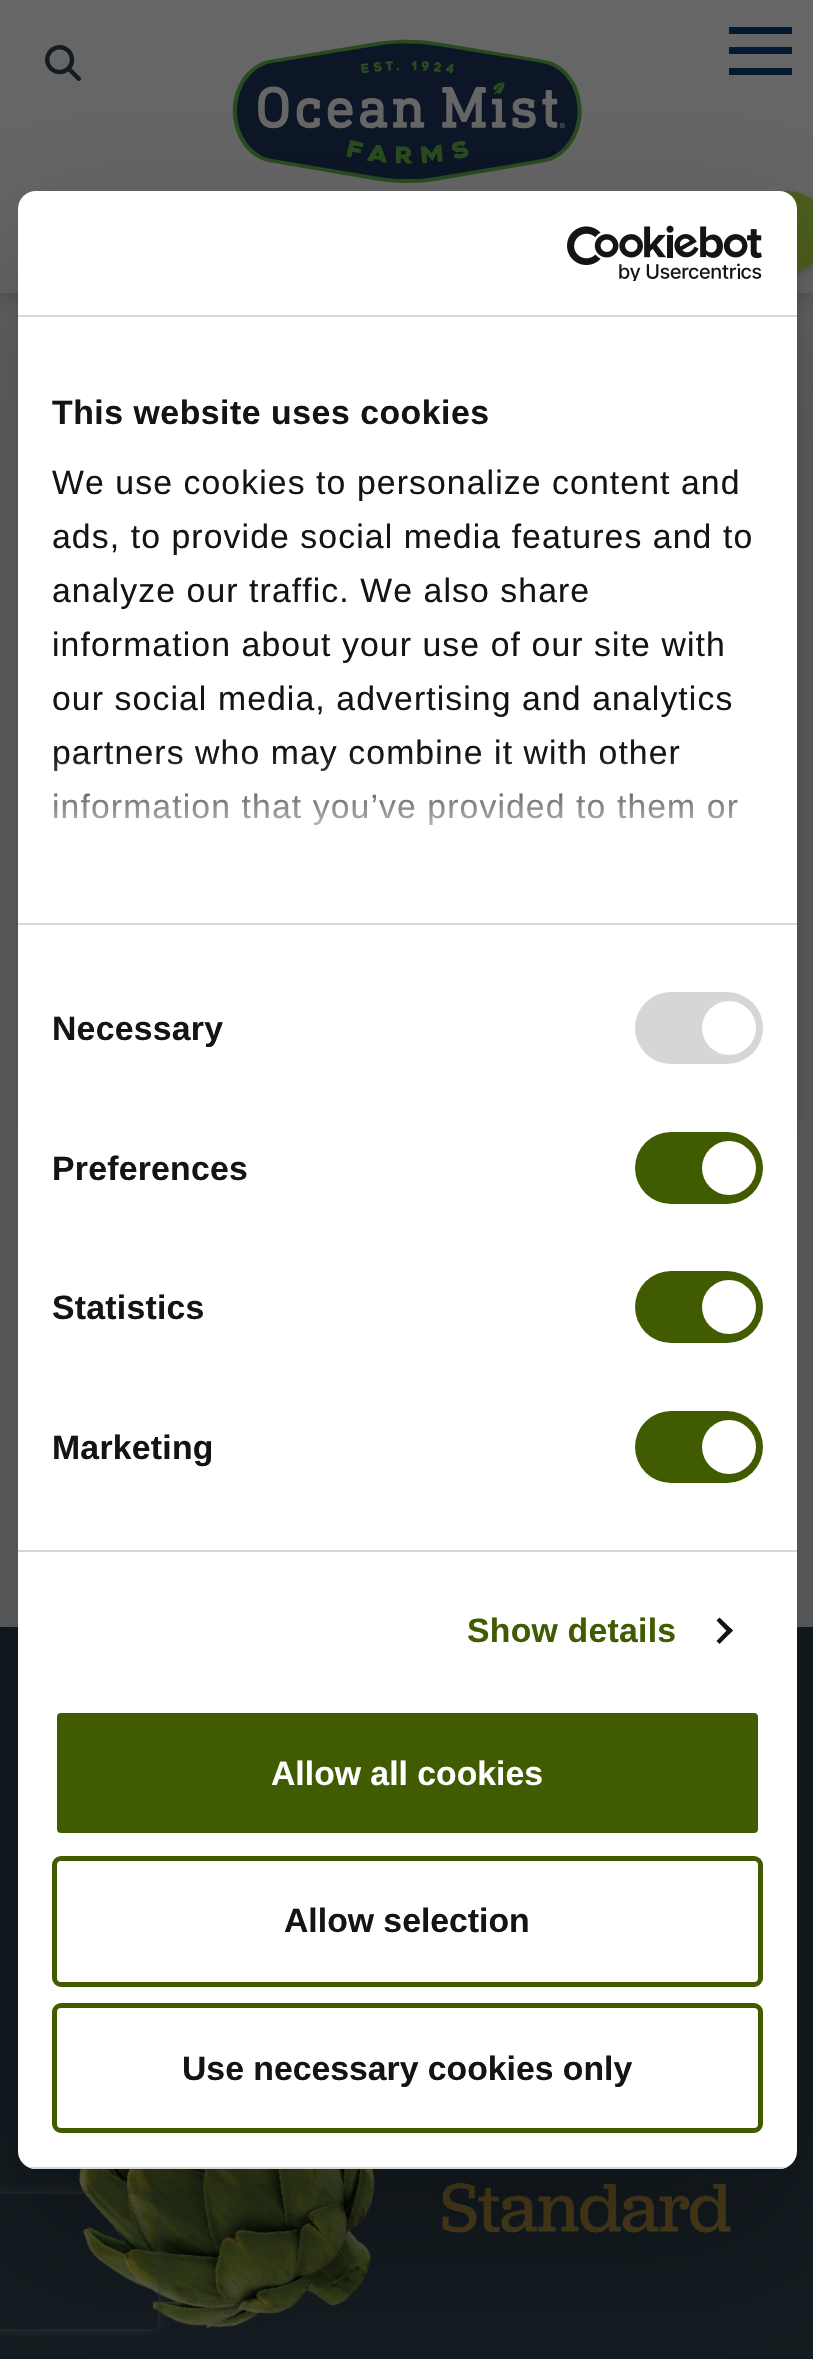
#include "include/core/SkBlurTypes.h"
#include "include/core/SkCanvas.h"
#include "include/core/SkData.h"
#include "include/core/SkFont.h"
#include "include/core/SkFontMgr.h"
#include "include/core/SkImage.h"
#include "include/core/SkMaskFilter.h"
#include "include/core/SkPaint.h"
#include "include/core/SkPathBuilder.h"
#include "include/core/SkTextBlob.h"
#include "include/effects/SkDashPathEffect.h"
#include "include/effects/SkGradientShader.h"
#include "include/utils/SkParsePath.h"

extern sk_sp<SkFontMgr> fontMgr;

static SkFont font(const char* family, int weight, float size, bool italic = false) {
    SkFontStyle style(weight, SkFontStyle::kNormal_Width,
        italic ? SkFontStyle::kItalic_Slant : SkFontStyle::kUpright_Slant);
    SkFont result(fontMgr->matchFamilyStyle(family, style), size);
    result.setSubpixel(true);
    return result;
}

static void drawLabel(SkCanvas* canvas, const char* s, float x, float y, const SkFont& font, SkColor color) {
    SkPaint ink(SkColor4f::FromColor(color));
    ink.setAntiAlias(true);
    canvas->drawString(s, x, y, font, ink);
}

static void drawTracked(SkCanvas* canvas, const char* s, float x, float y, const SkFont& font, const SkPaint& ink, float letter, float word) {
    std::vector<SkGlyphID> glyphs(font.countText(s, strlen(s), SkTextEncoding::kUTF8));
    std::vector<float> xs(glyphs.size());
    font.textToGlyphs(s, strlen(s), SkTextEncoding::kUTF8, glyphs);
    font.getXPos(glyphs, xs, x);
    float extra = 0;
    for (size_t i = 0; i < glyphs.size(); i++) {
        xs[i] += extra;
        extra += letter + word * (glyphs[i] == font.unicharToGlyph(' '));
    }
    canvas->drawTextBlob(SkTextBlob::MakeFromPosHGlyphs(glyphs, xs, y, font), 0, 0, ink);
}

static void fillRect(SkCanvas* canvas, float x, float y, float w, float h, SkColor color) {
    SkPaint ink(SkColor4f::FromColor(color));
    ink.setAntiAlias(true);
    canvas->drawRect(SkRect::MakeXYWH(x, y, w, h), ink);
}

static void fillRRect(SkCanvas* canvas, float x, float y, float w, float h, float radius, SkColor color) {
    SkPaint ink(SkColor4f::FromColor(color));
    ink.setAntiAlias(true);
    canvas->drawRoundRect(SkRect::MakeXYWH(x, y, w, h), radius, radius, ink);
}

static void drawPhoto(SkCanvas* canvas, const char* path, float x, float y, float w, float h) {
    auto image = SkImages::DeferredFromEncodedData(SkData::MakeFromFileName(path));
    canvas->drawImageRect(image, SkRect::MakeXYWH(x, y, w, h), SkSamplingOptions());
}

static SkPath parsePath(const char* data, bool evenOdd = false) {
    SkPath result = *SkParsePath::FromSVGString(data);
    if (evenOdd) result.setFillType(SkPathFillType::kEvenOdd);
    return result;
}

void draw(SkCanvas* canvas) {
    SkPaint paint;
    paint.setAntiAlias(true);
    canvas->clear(0xFF626364);
    paint.setColor(0x40000000);
    paint.setMaskFilter(SkMaskFilter::MakeBlur(kNormal_SkBlurStyle, 11));
    canvas->drawRect(SkRect::MakeXYWH(0, 0, 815, 293), paint);
    paint.setMaskFilter(nullptr);
    fillRect(canvas, 0, 0, 813, 293, 0xFF666666);
    drawPhoto(canvas, "assets/img1.png", 45, 45, 36, 36);
    fillRect(canvas, 729, 47, 63, 7, 0xFF051A30);
    fillRect(canvas, 729, 27, 63, 7, 0xFF051A30);
    fillRect(canvas, 729, 68, 63, 7, 0xFF051A30);
    drawPhoto(canvas, "assets/img2.png", 232, 39, 350, 144);
    fillRect(canvas, 0, 1627, 813, 732, 0xFF141C21);
    drawPhoto(canvas, "assets/img3.png", 75, 2169, 662, 160);
    canvas->save();
    canvas->clipPath(parsePath("M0 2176H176V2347H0ZM-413 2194H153C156 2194 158 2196 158 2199V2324C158 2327 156 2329 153 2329H-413C-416 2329-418 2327-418 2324V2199C-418 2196-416 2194-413 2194Z", true), true);
    paint.setColor(0xFF333333);
    paint.setMaskFilter(SkMaskFilter::MakeBlur(kNormal_SkBlurStyle, 5.5f));
    canvas->drawRoundRect(SkRect::MakeXYWH(-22, 2194, 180, 135), 5, 5, paint);
    paint.setMaskFilter(nullptr);
    canvas->restore();
    paint.setColor(0x29020202);
    paint.setMaskFilter(SkMaskFilter::MakeBlur(kNormal_SkBlurStyle, 3.5f));
    canvas->drawRoundRect(SkRect::MakeXYWH(23, 227, 774, 932), 45, 45, paint);
    paint.setMaskFilter(nullptr);
    paint.setColor(0x3B1F1F1F);
    paint.setMaskFilter(SkMaskFilter::MakeBlur(kNormal_SkBlurStyle, 3.5f));
    canvas->drawRoundRect(SkRect::MakeXYWH(749, 194, 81, 81), 40.5f, 40.5f, paint);
    paint.setMaskFilter(nullptr);
    paint.setColor(0xFF4C5E1E);
    canvas->drawCircle(787.5f, 231.5f, 40.5f, paint);
    paint.setColor(0x4D000000);
    paint.setMaskFilter(SkMaskFilter::MakeBlur(kNormal_SkBlurStyle, 76.5f));
    canvas->drawRoundRect(SkRect::MakeXYWH(18, 263, 779, 1978), 18, 18, paint);
    paint.setMaskFilter(nullptr);
    fillRRect(canvas, 18, 191, 779, 1978, 18, 0xFFFFFFFF);
    fillRect(canvas, 18, 315, 779, 2, 0xFFD6D6D6);
    drawPhoto(canvas, "assets/img4.png", 567, 225, 195, 56);
    fillRect(canvas, 18, 923, 779, 2, 0xFFD6D6D6);
    SkFont font1 = font("Liberation Sans", 700, 33.75f);
    paint.setColor(0xFF141414);
    drawTracked(canvas, "This website uses cookies", 52, 424, font1, paint, 0.55f, 0);
    SkFont font2 = font("Liberation Sans", 400, 33.75f);
    drawTracked(canvas, "We use cookies to personalize content and", 52, 494, font2, paint, 1.1f, 0);
    drawTracked(canvas, "ads, to provide social media features and to", 52, 548, font2, paint, 1.1f, 0);
    drawTracked(canvas, "analyze our traffic. We also share", 52, 602, font2, paint, 1.1f, 0);
    drawTracked(canvas, "information about your use of our site with", 52, 656, font2, paint, 1.1f, 0);
    drawTracked(canvas, "our social media, advertising and analytics", 52, 710, font2, paint, 1.1f, 0);
    drawTracked(canvas, "partners who may combine it with other", 52, 764, font2, paint, 1.1f, 0);
    drawTracked(canvas, "information that you’ve provided to them or", 52, 818, font2, paint, 1.1f, 0);
    {
        const SkColor colors[] = {0xFFFFFFFF, 0xCCFFFFFF, 0x00FFFFFF};
        const float stops[] = {0, 0.5f, 1};
        const SkPoint ends[] = {{393, 923}, {393, 754}};
        paint.setShader(SkGradientShader::MakeLinear(ends, colors, stops, 3, SkTileMode::kClamp));
        paint.setAlpha(255);
    }
    canvas->drawRect(SkRect::MakeXYWH(54, 756, 685, 69), paint);
    fillRect(canvas, 18, 1550, 779, 2, 0xFFD6D6D6);
    paint.setShader(nullptr);
    paint.setColor(0xFF141414);
    drawTracked(canvas, "Necessary", 52, 1040, font1, paint, 0.25f, 0);
    fillRRect(canvas, 635, 992, 128, 72, 36, 0xFFD6D6D6);
    paint.setColor(0xFFFFFFFF);
    canvas->drawCircle(729, 1028, 27, paint);
    paint.setColor(0xFF141414);
    drawTracked(canvas, "Preferences", 52, 1180, font1, paint, 0.25f, 0);
    fillRRect(canvas, 635, 1132, 128, 72, 36, 0xFF415B01);
    paint.setColor(0xFFFFFFFF);
    canvas->drawCircle(729, 1168, 27, paint);
    paint.setColor(0xFF141414);
    drawTracked(canvas, "Statistics", 52, 1319, font1, paint, 0.25f, 0);
    fillRRect(canvas, 635, 1271, 128, 72, 36, 0xFF415B01);
    paint.setColor(0xFFFFFFFF);
    canvas->drawCircle(729, 1307, 27, paint);
    paint.setColor(0xFF141414);
    drawTracked(canvas, "Marketing", 52, 1459, font1, paint, 0.25f, 0);
    fillRRect(canvas, 635, 1411, 128, 72, 36, 0xFF415B01);
    paint.setColor(0xFFFFFFFF);
    canvas->drawCircle(729, 1447, 27, paint);
    paint.setColor(0xFF415B01);
    drawTracked(canvas, "Show details", 467, 1642, font1, paint, 0.25f, 0);
    paint.setColor(0xFF141414);
    canvas->drawPath(parsePath("M719.5 1617.5L733 1630.5L729.5 1634L716.5 1620.5Z"), paint);
    canvas->drawPath(parsePath("M729.5 1627.5L733 1630.5L719.5 1644L716.5 1641Z"), paint);
    canvas->save();
    canvas->clipPath(parsePath("M36 191H779C789 191 797 199 797 209V2151C797 2161 789 2169 779 2169H36C26 2169 18 2161 18 2151V209C18 199 26 191 36 191Z"), true);
    fillRect(canvas, 28, 2167, 759, 2, 0xFFD6D6D6);
    canvas->restore();
    paint.setColor(0xFF415B01);
    canvas->drawRoundRect(SkRect::MakeXYWH(54.5f, 1710.5f, 706, 125), 6.5f, 6.5f, paint);
    paint.setStroke(true);
    paint.setStrokeWidth(5);
    paint.setColor(0xFFFFFFFF);
    canvas->drawRoundRect(SkRect::MakeXYWH(54.5f, 1710.5f, 706, 125), 6.5f, 6.5f, paint);
    drawLabel(canvas, "Allow all cookies", 271, 1785, font1, 0xFFFFFFFF);
    paint.setColor(0xFF415B01);
    canvas->drawRoundRect(SkRect::MakeXYWH(54.5f, 1858.5f, 706, 126), 6.5f, 6.5f, paint);
    drawLabel(canvas, "Allow selection", 284, 1932, font1, 0xFF141414);
    canvas->drawRoundRect(SkRect::MakeXYWH(54.5f, 2005.5f, 706, 125), 6.5f, 6.5f, paint);
    drawLabel(canvas, "Use necessary cookies only", 182, 2080, font1, 0xFF141414);
}
